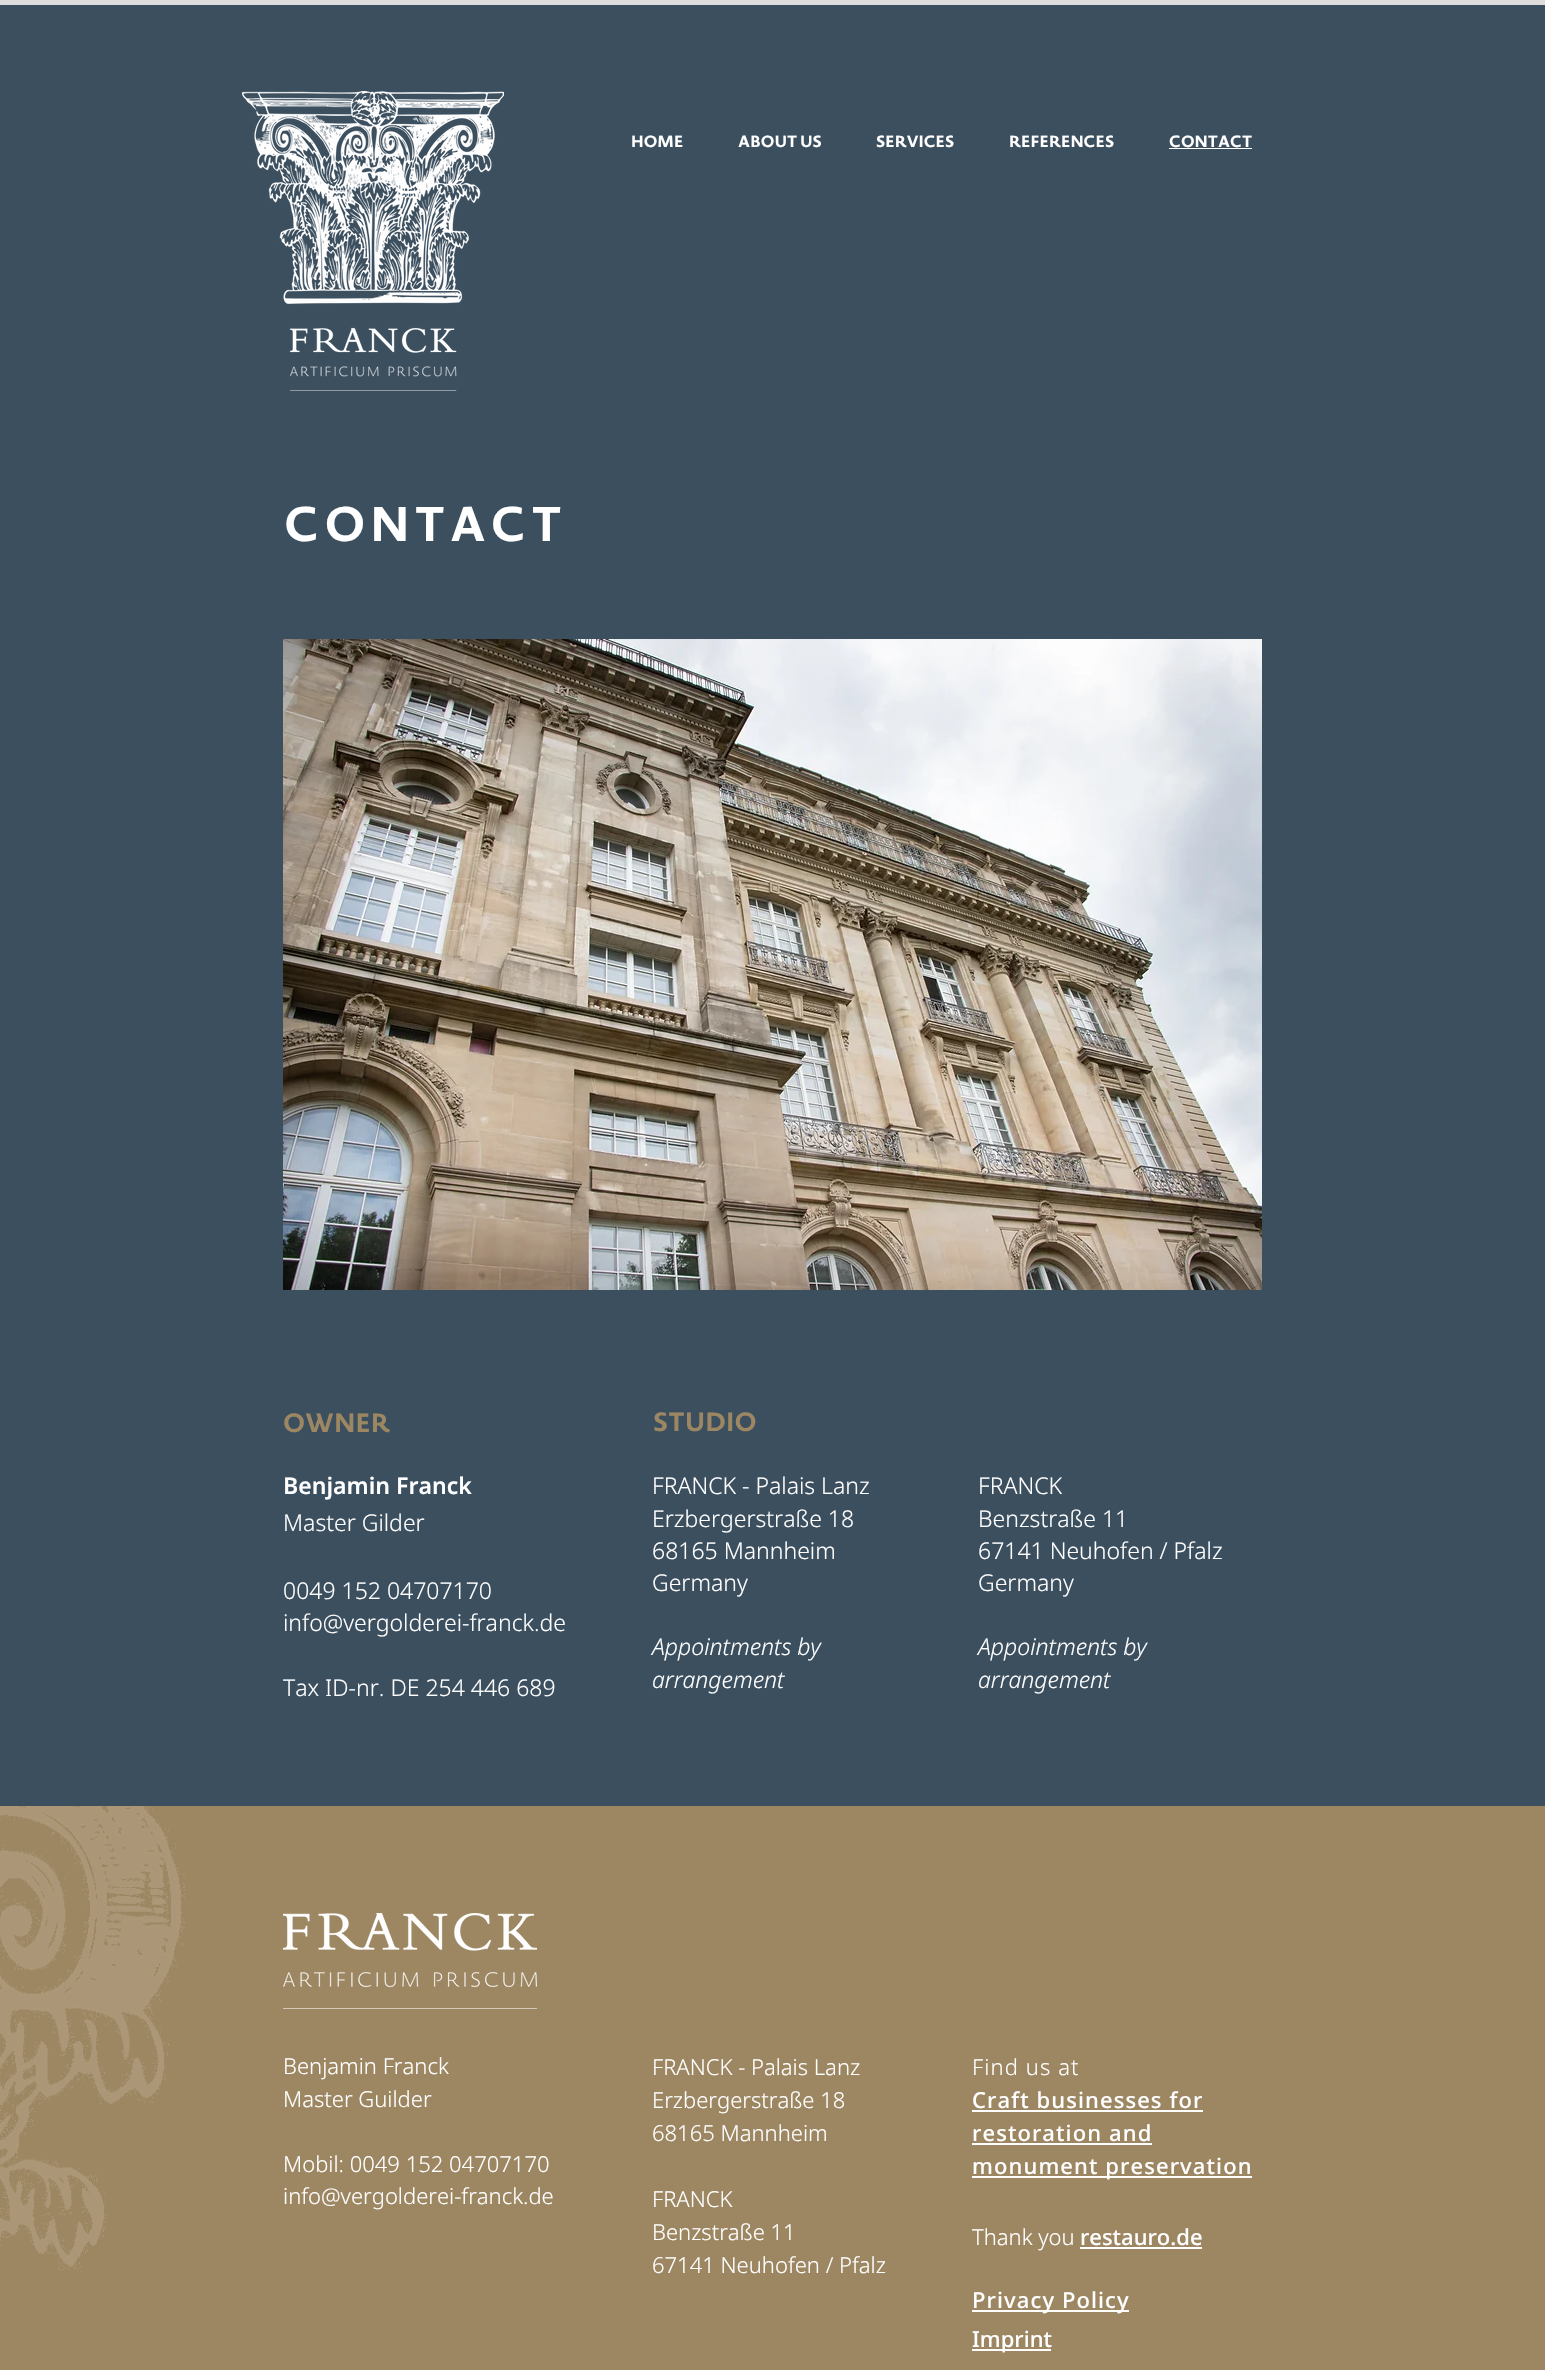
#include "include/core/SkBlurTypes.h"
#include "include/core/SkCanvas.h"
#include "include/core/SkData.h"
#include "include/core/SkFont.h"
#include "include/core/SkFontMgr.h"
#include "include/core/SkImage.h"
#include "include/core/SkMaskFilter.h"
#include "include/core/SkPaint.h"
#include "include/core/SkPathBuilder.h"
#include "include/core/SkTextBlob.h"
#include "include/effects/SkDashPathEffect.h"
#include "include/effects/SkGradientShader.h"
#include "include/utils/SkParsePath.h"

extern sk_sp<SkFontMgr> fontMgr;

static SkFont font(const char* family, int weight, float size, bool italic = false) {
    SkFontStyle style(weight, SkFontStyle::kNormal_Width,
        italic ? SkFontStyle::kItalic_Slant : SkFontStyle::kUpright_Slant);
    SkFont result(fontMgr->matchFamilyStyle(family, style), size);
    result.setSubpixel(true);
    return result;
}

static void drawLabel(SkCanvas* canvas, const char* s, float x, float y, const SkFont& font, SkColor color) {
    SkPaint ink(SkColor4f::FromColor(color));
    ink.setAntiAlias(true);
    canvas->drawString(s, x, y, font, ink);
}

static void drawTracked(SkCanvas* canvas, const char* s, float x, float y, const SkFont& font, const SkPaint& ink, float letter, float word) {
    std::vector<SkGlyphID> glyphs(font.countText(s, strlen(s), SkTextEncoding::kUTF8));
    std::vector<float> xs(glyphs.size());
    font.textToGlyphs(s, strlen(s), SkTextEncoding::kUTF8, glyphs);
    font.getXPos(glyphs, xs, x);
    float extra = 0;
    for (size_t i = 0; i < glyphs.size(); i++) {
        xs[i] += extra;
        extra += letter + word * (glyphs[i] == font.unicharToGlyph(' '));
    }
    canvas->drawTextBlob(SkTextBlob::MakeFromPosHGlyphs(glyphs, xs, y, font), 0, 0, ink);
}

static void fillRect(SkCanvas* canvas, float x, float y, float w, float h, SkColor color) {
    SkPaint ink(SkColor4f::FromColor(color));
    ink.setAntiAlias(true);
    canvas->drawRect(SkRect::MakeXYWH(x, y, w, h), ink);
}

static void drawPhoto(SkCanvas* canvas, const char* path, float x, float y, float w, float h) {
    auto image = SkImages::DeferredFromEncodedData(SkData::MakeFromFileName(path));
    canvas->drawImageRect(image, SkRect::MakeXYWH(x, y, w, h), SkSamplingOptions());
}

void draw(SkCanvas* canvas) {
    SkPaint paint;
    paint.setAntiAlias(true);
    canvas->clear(0xFFDDDEDB);
    fillRect(canvas, 0, 5, 1545, 1801, 0xFF3C4F5F);
    drawPhoto(canvas, "assets/img1.png", 242, 91, 262, 300);
    SkFont font1 = font("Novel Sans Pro", 700, 16);
    drawLabel(canvas, "HOME", 631, 147, font1, 0xFFFFFFFF);
    drawLabel(canvas, "ABOUT US", 738, 147, font1, 0xFFFFFFFF);
    drawLabel(canvas, "SERVICES", 876, 147, font1, 0xFFFFFFFF);
    drawLabel(canvas, "REFERENCES", 1009, 147, font1, 0xFFFFFFFF);
    drawLabel(canvas, "CONTACT", 1169, 147, font1, 0xFFFFFFFF);
    fillRect(canvas, 1169, 148, 83, 1, 0xFFFFFFFF);
    SkFont font2 = font("Novel Sans Pro", 700, 48);
    paint.setColor(0xFFFFFFFF);
    drawTracked(canvas, "CONTACT", 284, 541, font2, paint, 4.75f, 0);
    drawPhoto(canvas, "assets/img2.png", 283, 639, 979, 651);
    SkFont font3 = font("Novel Sans Pro", 700, 26);
    drawLabel(canvas, "OWNER", 283, 1432, font3, 0xFF9D8763);
    drawLabel(canvas, "STUDIO", 653, 1431, font3, 0xFF9D8763);
    SkFont font4 = font("Noto Sans", 600, 23);
    drawLabel(canvas, "Benjamin Franck", 283, 1494, font4, 0xFFFFFFFF);
    SkFont font5 = font("Noto Sans", 300, 23);
    drawLabel(canvas, "Master Gilder", 283, 1531, font5, 0xFFFFFFFF);
    drawLabel(canvas, "0049 152 04707170", 283, 1599, font5, 0xFFFFFFFF);
    drawLabel(canvas, "info@vergolderei-franck.de", 283, 1631, font5, 0xFFFFFFFF);
    drawLabel(canvas, "Tax ID-nr. DE 254 446 689", 283, 1696, font5, 0xFFFFFFFF);
    drawLabel(canvas, "FRANCK - Palais Lanz", 652, 1494, font5, 0xFFFFFFFF);
    drawLabel(canvas, "Erzbergerstraße 18", 652, 1527, font5, 0xFFFFFFFF);
    drawLabel(canvas, "68165 Mannheim", 652, 1559, font5, 0xFFFFFFFF);
    drawLabel(canvas, "Germany", 652, 1591, font5, 0xFFFFFFFF);
    SkFont font6 = font("Noto Sans", 300, 23, true);
    drawLabel(canvas, "Appointments by", 652, 1655, font6, 0xFFFFFFFF);
    drawLabel(canvas, "arrangement", 652, 1688, font6, 0xFFFFFFFF);
    drawLabel(canvas, "FRANCK", 978, 1494, font5, 0xFFFFFFFF);
    drawLabel(canvas, "Benzstraße 11", 978, 1527, font5, 0xFFFFFFFF);
    drawLabel(canvas, "67141 Neuhofen / Pfalz", 978, 1559, font5, 0xFFFFFFFF);
    drawLabel(canvas, "Germany", 978, 1591, font5, 0xFFFFFFFF);
    drawLabel(canvas, "Appointments by", 978, 1655, font6, 0xFFFFFFFF);
    drawLabel(canvas, "arrangement", 978, 1688, font6, 0xFFFFFFFF);
    fillRect(canvas, 0, 1806, 1545, 564, 0xFF9D8763);
    drawPhoto(canvas, "assets/img3.png", 0, 1806, 185, 464);
    drawPhoto(canvas, "assets/img4.png", 283, 1913, 254, 96);
    SkFont font7 = font("Noto Sans", 300, 22);
    drawLabel(canvas, "Benjamin Franck", 283, 2074, font7, 0xFFFFFFFF);
    drawLabel(canvas, "Master Guilder", 283, 2107, font7, 0xFFFFFFFF);
    drawLabel(canvas, "Mobil: 0049 152 04707170", 283, 2172, font7, 0xFFFFFFFF);
    drawLabel(canvas, "info@vergolderei-franck.de", 283, 2204, font7, 0xFFFFFFFF);
    drawLabel(canvas, "FRANCK - Palais Lanz", 652, 2075, font7, 0xFFFFFFFF);
    drawLabel(canvas, "Erzbergerstraße 18", 652, 2108, font7, 0xFFFFFFFF);
    drawLabel(canvas, "68165 Mannheim", 652, 2141, font7, 0xFFFFFFFF);
    drawLabel(canvas, "FRANCK", 652, 2207, font7, 0xFFFFFFFF);
    drawLabel(canvas, "Benzstraße 11", 652, 2240, font7, 0xFFFFFFFF);
    drawLabel(canvas, "67141 Neuhofen / Pfalz", 652, 2273, font7, 0xFFFFFFFF);
    drawTracked(canvas, "Find us at", 972, 2075, font7, paint, 1.1f, 0);
    SkFont font8 = font("Noto Sans", 500, 22);
    drawTracked(canvas, "Craft businesses for", 972, 2108, font8, paint, 1.1f, 0);
    fillRect(canvas, 972, 2110, 231, 2, 0xFFFFFFFF);
    drawTracked(canvas, "restoration and", 972, 2141, font8, paint, 1.1f, 0);
    fillRect(canvas, 972, 2143, 180, 2, 0xFFFFFFFF);
    fillRect(canvas, 972, 2176, 280, 2, 0xFFFFFFFF);
    drawTracked(canvas, "monument preservation", 972, 2174, font8, paint, 1.1f, 0);
    drawLabel(canvas, "Thank you", 972, 2245, font7, 0xFFFFFFFF);
    drawLabel(canvas, "restauro.de", 1080, 2245, font8, 0xFFFFFFFF);
    fillRect(canvas, 1080, 2247, 122, 2, 0xFFFFFFFF);
    fillRect(canvas, 972, 2310, 157, 2, 0xFFFFFFFF);
    drawTracked(canvas, "Privacy Policy", 972, 2308, font8, paint, 1.1f, 0);
    fillRect(canvas, 972, 2349, 79, 2, 0xFFFFFFFF);
    drawLabel(canvas, "Imprint", 972, 2347, font8, 0xFFFFFFFF);
}
